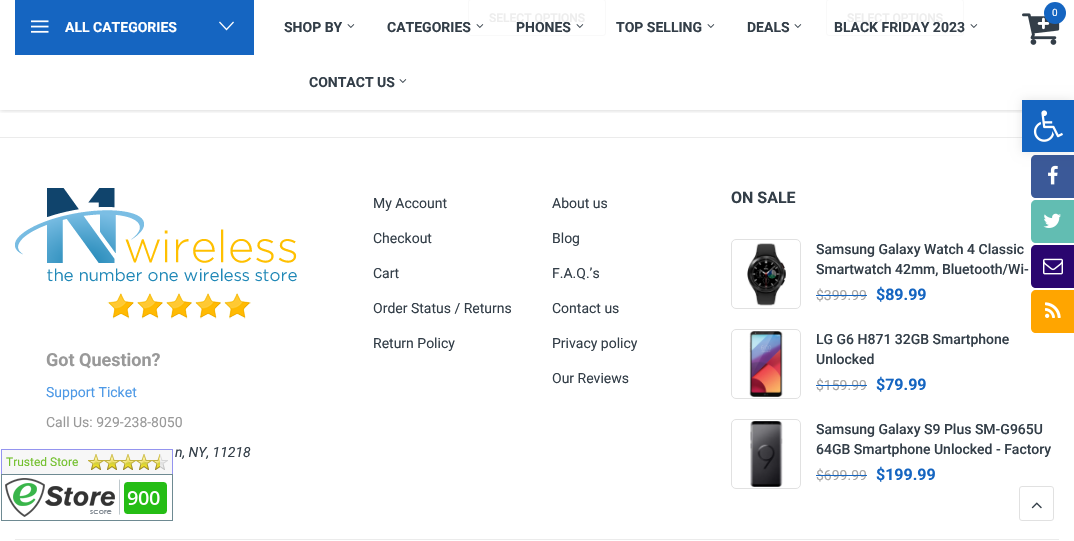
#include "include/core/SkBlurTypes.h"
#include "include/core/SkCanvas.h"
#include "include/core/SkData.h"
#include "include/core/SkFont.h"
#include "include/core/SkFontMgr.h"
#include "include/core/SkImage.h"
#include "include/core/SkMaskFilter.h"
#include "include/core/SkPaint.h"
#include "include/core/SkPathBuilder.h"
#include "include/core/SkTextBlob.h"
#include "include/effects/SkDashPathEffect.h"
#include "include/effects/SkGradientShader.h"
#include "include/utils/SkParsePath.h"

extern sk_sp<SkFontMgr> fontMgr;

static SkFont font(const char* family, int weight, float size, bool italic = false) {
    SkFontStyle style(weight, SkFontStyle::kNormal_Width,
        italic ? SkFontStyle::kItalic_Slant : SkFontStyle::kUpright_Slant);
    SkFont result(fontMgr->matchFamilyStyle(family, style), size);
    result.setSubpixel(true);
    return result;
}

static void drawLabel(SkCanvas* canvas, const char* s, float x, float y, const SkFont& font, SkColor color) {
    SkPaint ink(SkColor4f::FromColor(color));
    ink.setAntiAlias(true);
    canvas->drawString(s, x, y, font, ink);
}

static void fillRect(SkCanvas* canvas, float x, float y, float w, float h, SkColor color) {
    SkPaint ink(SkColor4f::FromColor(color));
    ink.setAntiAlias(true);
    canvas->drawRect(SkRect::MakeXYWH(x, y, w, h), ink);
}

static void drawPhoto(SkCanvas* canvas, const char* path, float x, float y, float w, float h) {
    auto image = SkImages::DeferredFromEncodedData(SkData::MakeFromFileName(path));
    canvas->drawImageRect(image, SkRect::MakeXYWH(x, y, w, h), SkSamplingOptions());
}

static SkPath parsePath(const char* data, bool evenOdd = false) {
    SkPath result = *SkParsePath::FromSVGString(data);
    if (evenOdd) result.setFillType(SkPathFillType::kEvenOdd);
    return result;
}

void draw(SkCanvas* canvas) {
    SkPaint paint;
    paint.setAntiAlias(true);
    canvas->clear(0xFFFFFFFF);
    paint.setStroke(true);
    paint.setStrokeWidth(1);
    paint.setColor(0xFFF9F9F9);
    canvas->drawRoundRect(SkRect::MakeXYWH(468.5f, -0.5f, 137, 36), 2.5f, 2.5f, paint);
    canvas->drawRoundRect(SkRect::MakeXYWH(826.5f, -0.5f, 137, 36), 2.5f, 2.5f, paint);
    canvas->save();
    canvas->clipRect(SkRect::MakeXYWH(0, 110, 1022, 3));
    paint.setStroke(false);
    paint.setColor(0x33000000);
    paint.setMaskFilter(SkMaskFilter::MakeBlur(kNormal_SkBlurStyle, 2.5f));
    canvas->drawRect(SkRect::MakeXYWH(0, 0, 1074, 110), paint);
    paint.setMaskFilter(nullptr);
    canvas->restore();
    drawPhoto(canvas, "assets/img1.png", 1022, 13, 38, 32);
    paint.setColor(0xFF1565C1);
    canvas->drawCircle(1055, 13, 11, paint);
    SkFont font1 = font("Roboto", 400, 10);
    drawLabel(canvas, "0", 1052, 16, font1, 0xFFFFFFFF);
    fillRect(canvas, 15, 0, 239, 55, 0xFF1565C1);
    drawPhoto(canvas, "assets/img2.png", 31, 20, 18, 13);
    SkFont font2 = font("Roboto", 700, 14);
    drawLabel(canvas, "ALL CATEGORIES", 65, 32, font2, 0xFFFFFFFF);
    drawPhoto(canvas, "assets/img3.png", 219, 21, 15, 10);
    drawLabel(canvas, "SHOP BY", 284, 32, font2, 0xFF333E48);
    drawPhoto(canvas, "assets/img4.png", 347, 24, 8, 4);
    drawLabel(canvas, "CATEGORIES", 387, 32, font2, 0xFF333E48);
    drawPhoto(canvas, "assets/img4.png", 476, 24, 8, 4);
    drawLabel(canvas, "PHONES", 516, 32, font2, 0xFF333E48);
    drawPhoto(canvas, "assets/img4.png", 576, 24, 8, 4);
    drawLabel(canvas, "TOP SELLING", 616, 32, font2, 0xFF333E48);
    drawPhoto(canvas, "assets/img4.png", 707, 24, 8, 4);
    drawLabel(canvas, "DEALS", 747, 32, font2, 0xFF333E48);
    drawPhoto(canvas, "assets/img4.png", 794, 24, 8, 4);
    drawLabel(canvas, "BLACK FRIDAY 2023", 834, 32, font2, 0xFF333E48);
    drawPhoto(canvas, "assets/img4.png", 970, 24, 8, 4);
    drawLabel(canvas, "CONTACT US", 309, 87, font2, 0xFF333E48);
    drawPhoto(canvas, "assets/img4.png", 399, 79, 8, 4);
    SkFont font3 = font("Roboto", 500, 12);
    drawLabel(canvas, "SELECT OPTIONS", 489, 22, font3, 0xFFEDEDED);
    drawLabel(canvas, "SELECT OPTIONS", 847, 22, font3, 0xFFEDEDED);
    fillRect(canvas, 0, 137, 1022, 1, 0xFFEBEBEB);
    paint.setColor(0xFF3B5998);
    canvas->drawPath(parsePath("M1036 155H1074V198H1036C1033 198 1031 196 1031 193V160C1031 157 1033 155 1036 155Z"), paint);
    drawPhoto(canvas, "assets/img14.png", 1048, 165, 10, 20);
    paint.setColor(0x1A000000);
    paint.setMaskFilter(SkMaskFilter::MakeBlur(kNormal_SkBlurStyle, 5));
    canvas->drawRect(SkRect::MakeXYWH(1022, 100, 52, 52), paint);
    paint.setMaskFilter(nullptr);
    fillRect(canvas, 1022, 100, 52, 52, 0xFF1565C1);
    drawPhoto(canvas, "assets/img5.png", 1033, 110, 30, 32);
    fillRect(canvas, 2, 450, 170, 24, 0xFFF7F7F7);
    fillRect(canvas, 1, 449, 172, 1, 0xFF9494EF);
    fillRect(canvas, 172, 449, 1, 25, 0xFF9494EF);
    fillRect(canvas, 1, 449, 1, 25, 0xFF9494EF);
    SkFont font4 = font("Roboto", 400, 12);
    drawLabel(canvas, "Trusted Store", 6, 466, font4, 0xFF72C02C);
    drawPhoto(canvas, "assets/img6.png", 88, 454, 80, 16);
    drawPhoto(canvas, "assets/img7.png", 88, 454, 72, 16);
    drawPhoto(canvas, "assets/img8.png", 1, 474, 172, 47);
    SkFont font5 = font("Roboto", 400, 14);
    drawLabel(canvas, "My Account", 373, 208, font5, 0xFF333E48);
    drawLabel(canvas, "Checkout", 373, 243, font5, 0xFF333E48);
    drawLabel(canvas, "Cart", 373, 278, font5, 0xFF333E48);
    drawLabel(canvas, "Order Status / Returns", 373, 313, font5, 0xFF333E48);
    drawLabel(canvas, "Return Policy", 373, 348, font5, 0xFF333E48);
    drawLabel(canvas, "About us", 552, 208, font5, 0xFF333E48);
    drawLabel(canvas, "Blog", 552, 243, font5, 0xFF333E48);
    drawLabel(canvas, "F.A.Q.’s", 552, 278, font5, 0xFF333E48);
    drawLabel(canvas, "Contact us", 552, 313, font5, 0xFF333E48);
    drawLabel(canvas, "Privacy policy", 552, 348, font5, 0xFF333E48);
    drawLabel(canvas, "Our Reviews", 552, 383, font5, 0xFF333E48);
    SkFont font6 = font("Roboto", 700, 16);
    drawLabel(canvas, "ON SALE", 731, 203, font6, 0xFF333E48);
    paint.setStroke(true);
    paint.setColor(0xFFE1E1E1);
    canvas->drawRoundRect(SkRect::MakeXYWH(731.5f, 239.5f, 69, 69), 4.5f, 4.5f, paint);
    drawPhoto(canvas, "assets/img9.png", 747, 243, 39, 63);
    SkFont font7 = font("Roboto", 500, 14);
    drawLabel(canvas, "Samsung Galaxy Watch 4 Classic", 816, 254, font7, 0xFF333E48);
    drawLabel(canvas, "Smartwatch 42mm, Bluetooth/Wi-", 816, 274, font7, 0xFF333E48);
    drawLabel(canvas, "$399.99", 816, 300, font5, 0xFFA5A5A5);
    fillRect(canvas, 816, 295, 51, 1, 0xFF1565C1);
    drawLabel(canvas, "$89.99", 876, 300, font6, 0xFF1565C1);
    canvas->drawRoundRect(SkRect::MakeXYWH(731.5f, 329.5f, 69, 69), 4.5f, 4.5f, paint);
    drawPhoto(canvas, "assets/img10.png", 749, 331, 34, 66);
    drawLabel(canvas, "LG G6 H871 32GB Smartphone", 816, 344, font7, 0xFF333E48);
    drawLabel(canvas, "Unlocked", 816, 364, font7, 0xFF333E48);
    drawLabel(canvas, "$159.99", 816, 390, font5, 0xFFA5A5A5);
    fillRect(canvas, 816, 385, 51, 1, 0xFF1565C1);
    drawLabel(canvas, "$79.99", 876, 390, font6, 0xFF1565C1);
    canvas->drawRoundRect(SkRect::MakeXYWH(731.5f, 419.5f, 69, 69), 4.5f, 4.5f, paint);
    drawPhoto(canvas, "assets/img11.png", 750, 421, 33, 66);
    drawLabel(canvas, "Samsung Galaxy S9 Plus SM-G965U", 816, 434, font7, 0xFF333E48);
    drawLabel(canvas, "64GB Smartphone Unlocked - Factory", 816, 454, font7, 0xFF333E48);
    drawLabel(canvas, "$699.99", 816, 480, font5, 0xFFA5A5A5);
    fillRect(canvas, 816, 475, 51, 1, 0xFF1565C1);
    drawLabel(canvas, "$199.99", 876, 480, font6, 0xFF1565C1);
    drawPhoto(canvas, "assets/img12.png", 15, 188, 282, 94);
    drawPhoto(canvas, "assets/img13.png", 107, 293, 144, 26);
    SkFont font8 = font("Roboto", 700, 18);
    drawLabel(canvas, "Got Question?", 46, 366, font8, 0xFF999999);
    drawLabel(canvas, "Support Ticket", 46, 397, font5, 0xFF4D99E6);
    drawLabel(canvas, "Call Us: 929-238-8050", 46, 427, font5, 0xFF999999);
    SkFont font9 = font("Roboto", 400, 14, true);
    drawLabel(canvas, "n, NY, 11218", 175, 457, font9, 0xFF333E48);
    fillRect(canvas, 15, 539, 1044, 1, 0xFFEBEBEB);
    paint.setStroke(false);
    paint.setColor(0xFF62BDB2);
    canvas->drawPath(parsePath("M1036 200H1074V243H1036C1033 243 1031 241 1031 238V205C1031 202 1033 200 1036 200Z"), paint);
    drawPhoto(canvas, "assets/img15.png", 1043, 213, 18, 15);
    paint.setColor(0xFF2A056F);
    canvas->drawPath(parsePath("M1036 245H1074V288H1036C1033 288 1031 286 1031 283V250C1031 247 1033 245 1036 245Z"), paint);
    drawPhoto(canvas, "assets/img16.png", 1043, 258, 20, 17);
    paint.setColor(0xFFFFA500);
    canvas->drawPath(parsePath("M1036 290H1074V333H1036C1033 333 1031 331 1031 328V295C1031 292 1033 290 1036 290Z"), paint);
    drawPhoto(canvas, "assets/img17.png", 1045, 302, 16, 16);
    paint.setStroke(true);
    paint.setColor(0xFFE1E1E1);
    canvas->drawRoundRect(SkRect::MakeXYWH(1019.5f, 486.5f, 34, 34), 2.5f, 2.5f, paint);
    drawPhoto(canvas, "assets/img18.png", 1031, 502, 11, 7);
}
